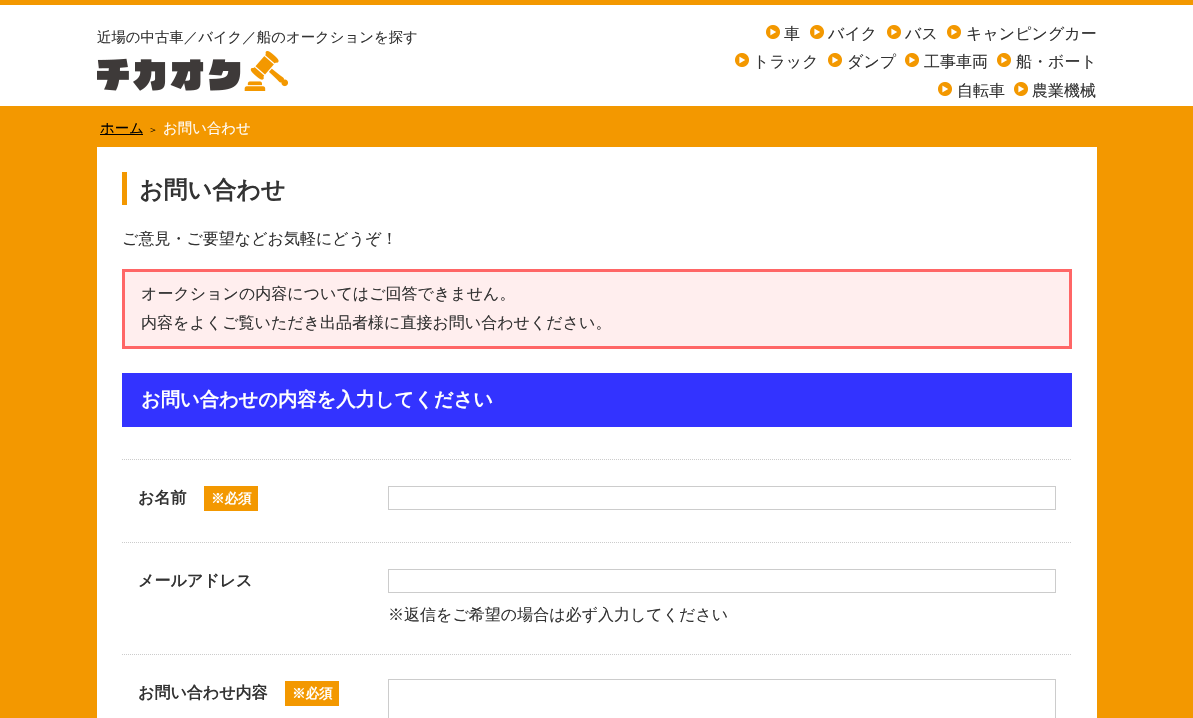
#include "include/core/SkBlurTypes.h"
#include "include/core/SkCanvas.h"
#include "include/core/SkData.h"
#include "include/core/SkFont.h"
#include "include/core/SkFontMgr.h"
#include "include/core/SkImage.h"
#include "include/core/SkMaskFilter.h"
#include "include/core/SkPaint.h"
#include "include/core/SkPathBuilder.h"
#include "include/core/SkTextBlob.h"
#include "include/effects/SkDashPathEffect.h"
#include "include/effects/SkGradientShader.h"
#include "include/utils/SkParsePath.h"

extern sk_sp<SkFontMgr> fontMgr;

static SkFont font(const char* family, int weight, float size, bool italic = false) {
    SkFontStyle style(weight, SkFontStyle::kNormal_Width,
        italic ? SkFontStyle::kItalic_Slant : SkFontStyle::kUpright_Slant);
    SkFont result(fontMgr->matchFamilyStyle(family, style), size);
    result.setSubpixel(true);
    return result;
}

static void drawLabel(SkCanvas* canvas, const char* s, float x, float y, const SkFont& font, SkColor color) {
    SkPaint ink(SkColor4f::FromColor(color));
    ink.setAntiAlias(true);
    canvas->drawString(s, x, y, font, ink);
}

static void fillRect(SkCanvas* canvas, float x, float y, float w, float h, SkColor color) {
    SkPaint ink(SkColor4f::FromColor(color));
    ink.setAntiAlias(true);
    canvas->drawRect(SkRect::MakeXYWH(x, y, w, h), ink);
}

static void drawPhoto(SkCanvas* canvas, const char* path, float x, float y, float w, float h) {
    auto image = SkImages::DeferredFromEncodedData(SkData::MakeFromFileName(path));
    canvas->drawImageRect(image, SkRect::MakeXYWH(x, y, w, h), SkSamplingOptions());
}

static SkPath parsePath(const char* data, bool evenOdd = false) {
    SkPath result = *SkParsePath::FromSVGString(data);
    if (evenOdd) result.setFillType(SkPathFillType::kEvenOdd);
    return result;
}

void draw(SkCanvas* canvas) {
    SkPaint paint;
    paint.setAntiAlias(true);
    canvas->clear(0xFFFFFFFF);
    fillRect(canvas, 0, 0, 1193, 5, 0xFFF39800);
    SkFont font1 = font("WenQuanYi Zen Hei", 500, 14.4f);
    drawLabel(canvas, "近場の中古車／バイク／船のオークションを探す", 97, 42, font1, 0xFF333333);
    drawPhoto(canvas, "assets/img1.png", 766, 25, 14, 14);
    SkFont font2 = font("WenQuanYi Zen Hei", 500, 16);
    drawLabel(canvas, "車", 784, 39, font2, 0xFF333333);
    drawPhoto(canvas, "assets/img1.png", 810, 25, 14, 14);
    drawLabel(canvas, "バイク", 828, 39, font2, 0xFF333333);
    drawPhoto(canvas, "assets/img1.png", 887, 25, 14, 14);
    drawLabel(canvas, "バス", 905, 39, font2, 0xFF333333);
    drawPhoto(canvas, "assets/img1.png", 947, 25, 14, 14);
    drawLabel(canvas, "キャンピングカー", 966, 39, font2, 0xFF333333);
    drawPhoto(canvas, "assets/img1.png", 735, 53, 14, 14);
    drawLabel(canvas, "トラック", 753, 67, font2, 0xFF333333);
    drawPhoto(canvas, "assets/img1.png", 828, 53, 14, 14);
    drawLabel(canvas, "ダンプ", 847, 67, font2, 0xFF333333);
    drawPhoto(canvas, "assets/img1.png", 905, 53, 14, 14);
    drawLabel(canvas, "工事車両", 924, 67, font2, 0xFF333333);
    drawPhoto(canvas, "assets/img1.png", 997, 53, 14, 14);
    drawLabel(canvas, "船・ボート", 1016, 67, font2, 0xFF333333);
    drawPhoto(canvas, "assets/img1.png", 938, 82, 14, 14);
    drawLabel(canvas, "自転車", 957, 96, font2, 0xFF333333);
    drawPhoto(canvas, "assets/img1.png", 1014, 82, 14, 14);
    drawLabel(canvas, "農業機械", 1032, 96, font2, 0xFF333333);
    drawPhoto(canvas, "assets/img2.png", 97, 51, 191, 40);
    fillRect(canvas, 0, 106, 1193, 612, 0xFFF39800);
    fillRect(canvas, 100, 134, 43, 1, 0xFF000000);
    drawLabel(canvas, "ホーム", 100, 133, font1, 0xFF000000);
    SkFont font3 = font("WenQuanYi Zen Hei", 500, 10);
    drawLabel(canvas, "＞", 148, 133, font3, 0xFF000000);
    drawLabel(canvas, "お問い合わせ", 163, 133, font1, 0xFFFFFBF5);
    fillRect(canvas, 97, 147, 1000, 571, 0xFFFFFFFF);
    fillRect(canvas, 122, 172, 5, 33, 0xFFF39800);
    SkFont font4 = font("WenQuanYi Zen Hei", 700, 24);
    drawLabel(canvas, "お問い合わせ", 139, 198, font4, 0xFF333333);
    drawLabel(canvas, "ご意見・ご要望などお気軽にどうぞ！", 122, 244, font2, 0xFF333333);
    paint.setColor(0xFFFFEEEE);
    canvas->drawRect(SkRect::MakeXYWH(123.5f, 270.5f, 947, 77), paint);
    paint.setStroke(true);
    paint.setStrokeWidth(3);
    paint.setColor(0xFFFF6666);
    canvas->drawRect(SkRect::MakeXYWH(123.5f, 270.5f, 947, 77), paint);
    drawLabel(canvas, "オークションの内容についてはご回答できません。", 141, 299, font2, 0xFF333333);
    drawLabel(canvas, "内容をよくご覧いただき出品者様に直接お問い合わせください。", 141, 328, font2, 0xFF333333);
    fillRect(canvas, 122, 373, 950, 54, 0xFF3333FF);
    SkFont font5 = font("WenQuanYi Zen Hei", 700, 19.25f);
    drawLabel(canvas, "お問い合わせの内容を入力してください", 141, 406, font5, 0xFFFFFFFF);
    paint.setStrokeWidth(1);
    paint.setColor(0xFFCCCCCC);
    paint.setPathEffect(SkDashPathEffect::Make({{1, 1}}, 0));
    canvas->drawPath(parsePath("M122 459.5H372"), paint);
    paint.setPathEffect(nullptr);
    SkFont font6 = font("WenQuanYi Zen Hei", 700, 16);
    drawLabel(canvas, "お名前", 138, 503, font6, 0xFF333333);
    fillRect(canvas, 204, 486, 54, 25, 0xFFF39800);
    SkFont font7 = font("WenQuanYi Zen Hei", 700, 13.5f);
    drawLabel(canvas, "※必須", 211, 503, font7, 0xFFFFFFFF);
    paint.setPathEffect(SkDashPathEffect::Make({{1, 1}}, 0));
    canvas->drawPath(parsePath("M372 459.5H1072"), paint);
    paint.setPathEffect(nullptr);
    canvas->drawRect(SkRect::MakeXYWH(388.5f, 486.5f, 667, 23), paint);
    paint.setPathEffect(SkDashPathEffect::Make({{1, 1}}, 0));
    canvas->drawPath(parsePath("M122 542.5H372"), paint);
    paint.setPathEffect(nullptr);
    drawLabel(canvas, "メールアドレス", 138, 586, font6, 0xFF333333);
    paint.setPathEffect(SkDashPathEffect::Make({{1, 1}}, 0));
    canvas->drawPath(parsePath("M372 542.5H1072"), paint);
    paint.setPathEffect(nullptr);
    canvas->drawRect(SkRect::MakeXYWH(388.5f, 569.5f, 667, 23), paint);
    drawLabel(canvas, "※返信をご希望の場合は必ず入力してください", 388, 620, font2, 0xFF333333);
    paint.setPathEffect(SkDashPathEffect::Make({{1, 1}}, 0));
    canvas->drawPath(parsePath("M122 654.5H372"), paint);
    paint.setPathEffect(nullptr);
    drawLabel(canvas, "お問い合わせ内容", 138, 698, font6, 0xFF333333);
    fillRect(canvas, 285, 681, 54, 25, 0xFFF39800);
    drawLabel(canvas, "※必須", 292, 698, font7, 0xFFFFFFFF);
    paint.setPathEffect(SkDashPathEffect::Make({{1, 1}}, 0));
    canvas->drawPath(parsePath("M372 654.5H1072"), paint);
    paint.setPathEffect(nullptr);
    canvas->drawRect(SkRect::MakeXYWH(388.5f, 679.5f, 667, 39), paint);
}
